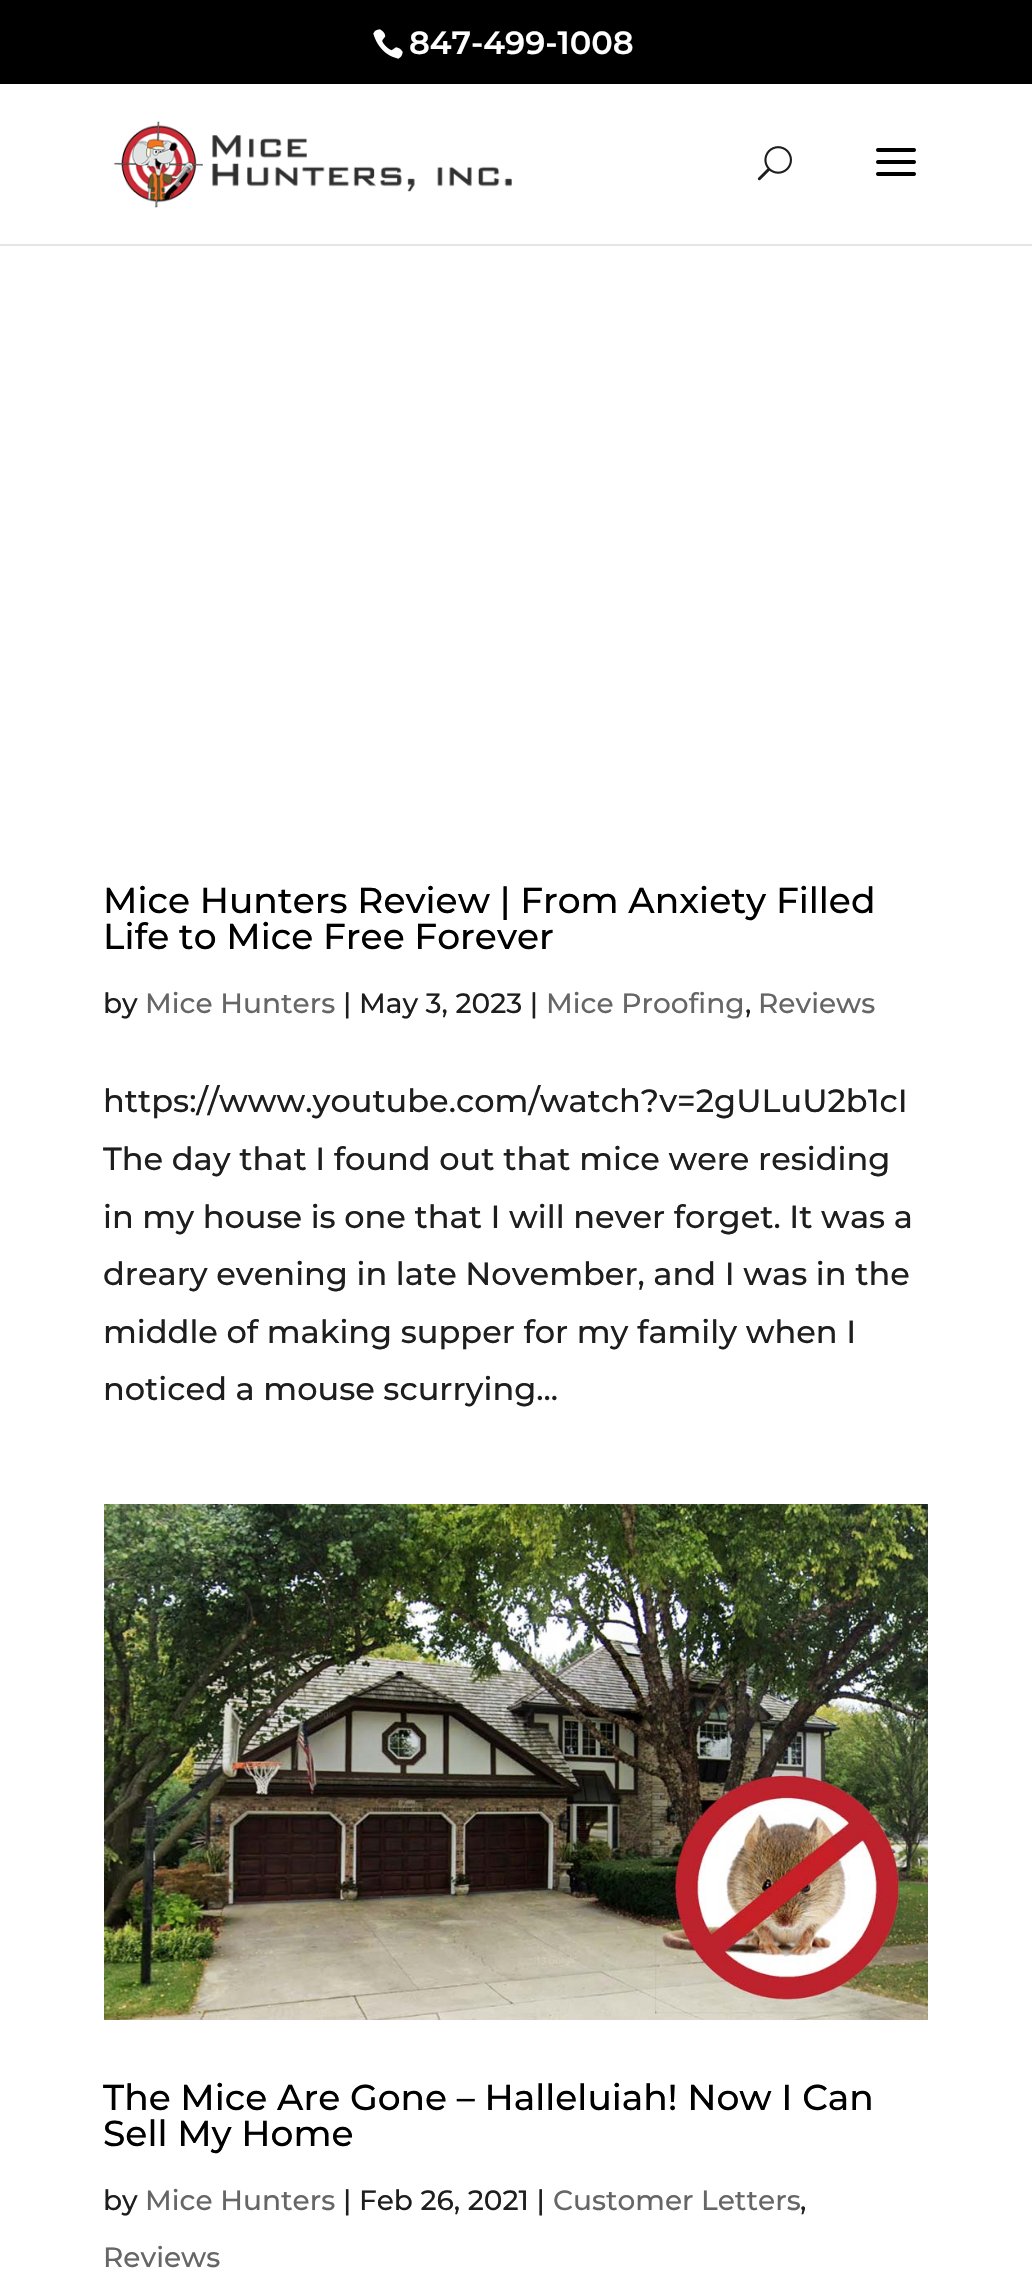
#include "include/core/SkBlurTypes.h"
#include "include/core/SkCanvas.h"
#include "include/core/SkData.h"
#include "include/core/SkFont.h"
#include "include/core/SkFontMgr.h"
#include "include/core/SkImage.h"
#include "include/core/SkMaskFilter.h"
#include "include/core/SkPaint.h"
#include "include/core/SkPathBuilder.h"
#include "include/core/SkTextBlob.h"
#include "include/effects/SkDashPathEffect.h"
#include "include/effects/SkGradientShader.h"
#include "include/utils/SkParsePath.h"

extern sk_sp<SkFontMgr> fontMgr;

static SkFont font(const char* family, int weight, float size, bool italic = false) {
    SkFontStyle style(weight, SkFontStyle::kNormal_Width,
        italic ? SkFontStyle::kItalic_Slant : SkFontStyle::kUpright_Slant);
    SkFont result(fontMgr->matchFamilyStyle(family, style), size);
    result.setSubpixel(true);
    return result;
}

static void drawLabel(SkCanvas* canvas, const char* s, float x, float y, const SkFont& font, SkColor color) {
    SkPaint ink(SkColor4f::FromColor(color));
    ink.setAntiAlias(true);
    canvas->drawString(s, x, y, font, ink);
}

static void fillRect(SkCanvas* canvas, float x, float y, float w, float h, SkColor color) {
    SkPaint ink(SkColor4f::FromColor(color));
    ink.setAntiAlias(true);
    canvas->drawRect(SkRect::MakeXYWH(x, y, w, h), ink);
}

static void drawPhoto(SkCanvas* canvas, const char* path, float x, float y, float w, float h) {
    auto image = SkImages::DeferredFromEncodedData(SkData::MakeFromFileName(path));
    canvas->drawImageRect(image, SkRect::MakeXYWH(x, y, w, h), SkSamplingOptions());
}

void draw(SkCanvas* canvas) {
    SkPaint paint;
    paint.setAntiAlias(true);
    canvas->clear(0xFF000000);
    drawPhoto(canvas, "assets/img1.png", 373, 29, 30, 30);
    SkFont font1 = font("Montserrat", 600, 32);
    drawLabel(canvas, "847-499-1008", 409, 54, font1, 0xFFFFFFFF);
    fillRect(canvas, 0, 244, 1032, 2, 0xFFE6E6E6);
    fillRect(canvas, 0, 84, 1032, 160, 0xFFFFFFFF);
    drawPhoto(canvas, "assets/img2.png", 113, 121, 399, 87);
    drawPhoto(canvas, "assets/img3.png", 757, 146, 35, 35);
    drawPhoto(canvas, "assets/img4.png", 876, 148, 40, 28);
    fillRect(canvas, 0, 246, 1032, 2043, 0xFFFFFFFF);
    SkFont font2 = font("Montserrat", 500, 36);
    drawLabel(canvas, "Mice Hunters Review | From Anxiety Filled", 103, 913, font2, 0xFF000000);
    drawLabel(canvas, "Life to Mice Free Forever", 103, 949, font2, 0xFF000000);
    SkFont font3 = font("Montserrat", 500, 28);
    drawLabel(canvas, "by", 103, 1013, font3, 0xFF1E1E1E);
    drawLabel(canvas, "Mice Hunters", 145, 1013, font3, 0xFF666666);
    drawLabel(canvas, "| May 3, 2023 |", 343, 1013, font3, 0xFF1E1E1E);
    drawLabel(canvas, "Mice Proofing", 546, 1013, font3, 0xFF666666);
    drawLabel(canvas, ",", 745, 1013, font3, 0xFF1E1E1E);
    drawLabel(canvas, "Reviews", 758, 1013, font3, 0xFF666666);
    SkFont font4 = font("Montserrat", 500, 32);
    drawLabel(canvas, "https://www.youtube.com/watch?v=2gULuU2b1cI", 103, 1112, font4, 0xFF1E1E1E);
    drawLabel(canvas, "The day that I found out that mice were residing", 103, 1170, font4, 0xFF1E1E1E);
    drawLabel(canvas, "in my house is one that I will never forget. It was a", 103, 1228, font4, 0xFF1E1E1E);
    drawLabel(canvas, "dreary evening in late November, and I was in the", 103, 1285, font4, 0xFF1E1E1E);
    drawLabel(canvas, "middle of making supper for my family when I", 103, 1343, font4, 0xFF1E1E1E);
    drawLabel(canvas, "noticed a mouse scurrying...", 103, 1400, font4, 0xFF1E1E1E);
    drawPhoto(canvas, "assets/img5.png", 104, 1504, 824, 516);
    drawLabel(canvas, "The Mice Are Gone – Halleluiah! Now I Can", 103, 2110, font2, 0xFF000000);
    drawLabel(canvas, "Sell My Home", 103, 2146, font2, 0xFF000000);
    drawLabel(canvas, "by", 103, 2210, font3, 0xFF1E1E1E);
    drawLabel(canvas, "Mice Hunters", 145, 2210, font3, 0xFF666666);
    drawLabel(canvas, "| Feb 26, 2021 |", 343, 2210, font3, 0xFF1E1E1E);
    drawLabel(canvas, "Customer Letters", 553, 2210, font3, 0xFF666666);
    drawLabel(canvas, ",", 800, 2210, font3, 0xFF1E1E1E);
    drawLabel(canvas, "Reviews", 103, 2267, font3, 0xFF666666);
}
